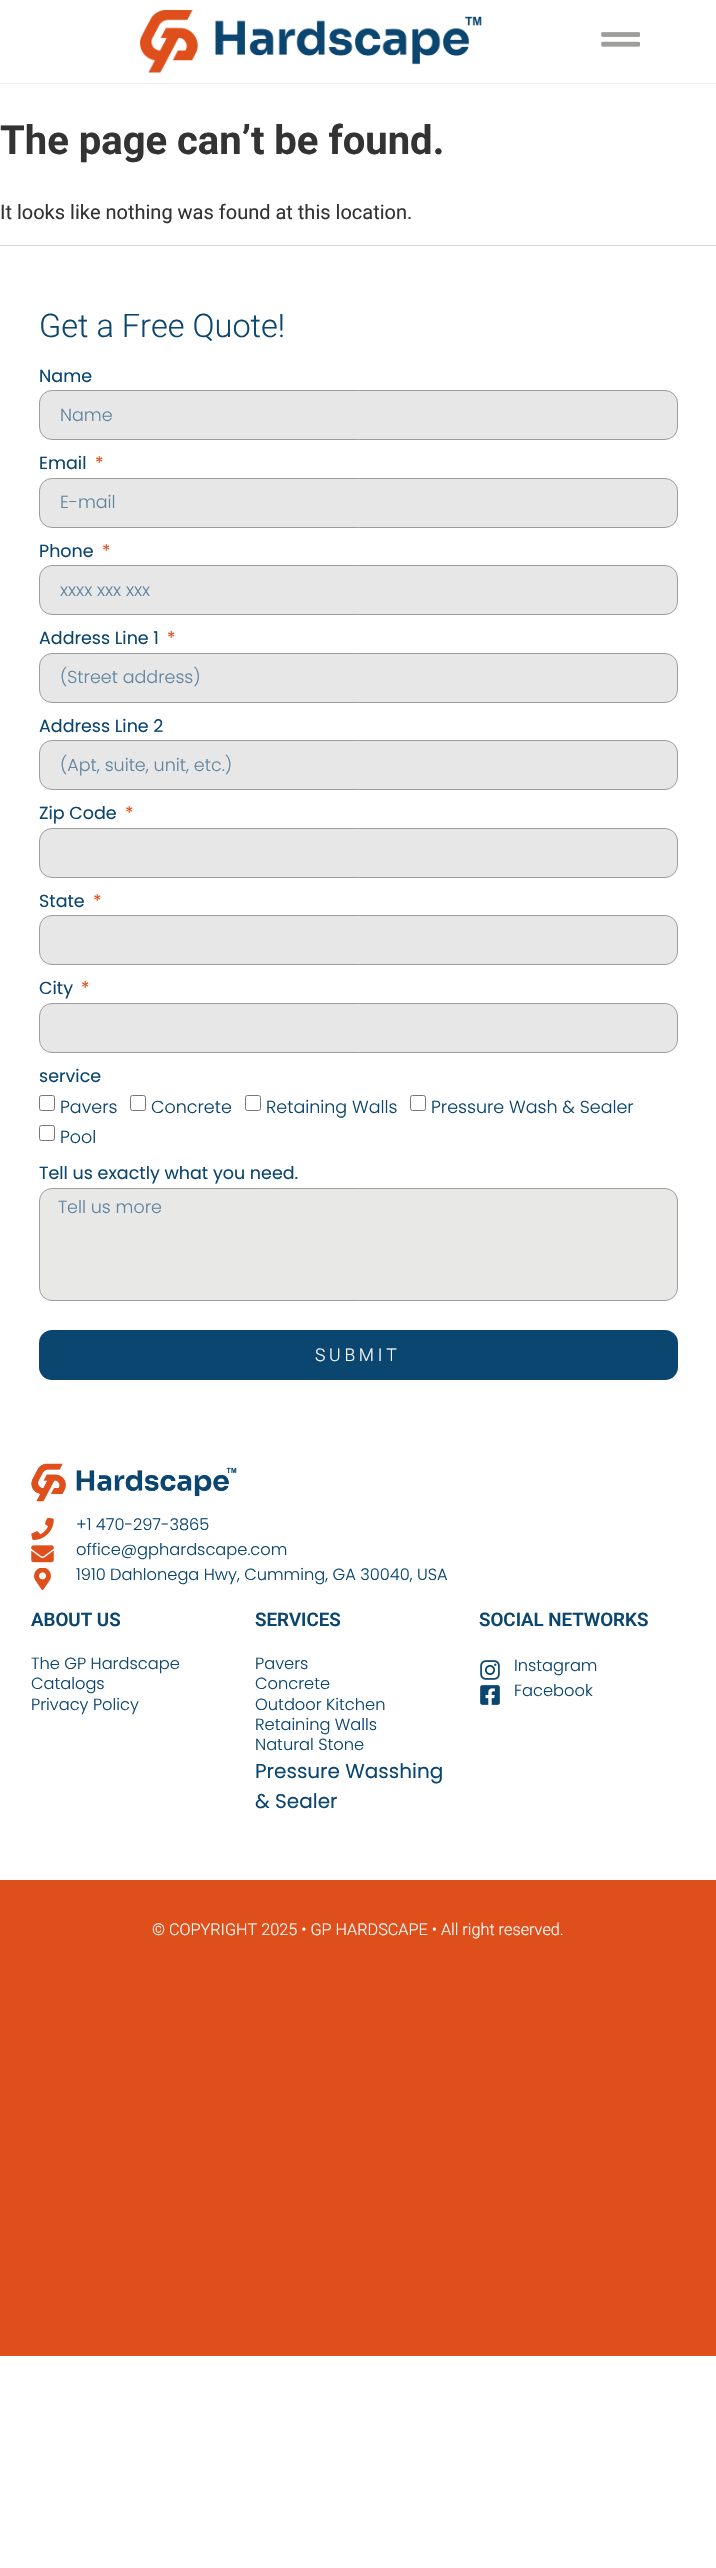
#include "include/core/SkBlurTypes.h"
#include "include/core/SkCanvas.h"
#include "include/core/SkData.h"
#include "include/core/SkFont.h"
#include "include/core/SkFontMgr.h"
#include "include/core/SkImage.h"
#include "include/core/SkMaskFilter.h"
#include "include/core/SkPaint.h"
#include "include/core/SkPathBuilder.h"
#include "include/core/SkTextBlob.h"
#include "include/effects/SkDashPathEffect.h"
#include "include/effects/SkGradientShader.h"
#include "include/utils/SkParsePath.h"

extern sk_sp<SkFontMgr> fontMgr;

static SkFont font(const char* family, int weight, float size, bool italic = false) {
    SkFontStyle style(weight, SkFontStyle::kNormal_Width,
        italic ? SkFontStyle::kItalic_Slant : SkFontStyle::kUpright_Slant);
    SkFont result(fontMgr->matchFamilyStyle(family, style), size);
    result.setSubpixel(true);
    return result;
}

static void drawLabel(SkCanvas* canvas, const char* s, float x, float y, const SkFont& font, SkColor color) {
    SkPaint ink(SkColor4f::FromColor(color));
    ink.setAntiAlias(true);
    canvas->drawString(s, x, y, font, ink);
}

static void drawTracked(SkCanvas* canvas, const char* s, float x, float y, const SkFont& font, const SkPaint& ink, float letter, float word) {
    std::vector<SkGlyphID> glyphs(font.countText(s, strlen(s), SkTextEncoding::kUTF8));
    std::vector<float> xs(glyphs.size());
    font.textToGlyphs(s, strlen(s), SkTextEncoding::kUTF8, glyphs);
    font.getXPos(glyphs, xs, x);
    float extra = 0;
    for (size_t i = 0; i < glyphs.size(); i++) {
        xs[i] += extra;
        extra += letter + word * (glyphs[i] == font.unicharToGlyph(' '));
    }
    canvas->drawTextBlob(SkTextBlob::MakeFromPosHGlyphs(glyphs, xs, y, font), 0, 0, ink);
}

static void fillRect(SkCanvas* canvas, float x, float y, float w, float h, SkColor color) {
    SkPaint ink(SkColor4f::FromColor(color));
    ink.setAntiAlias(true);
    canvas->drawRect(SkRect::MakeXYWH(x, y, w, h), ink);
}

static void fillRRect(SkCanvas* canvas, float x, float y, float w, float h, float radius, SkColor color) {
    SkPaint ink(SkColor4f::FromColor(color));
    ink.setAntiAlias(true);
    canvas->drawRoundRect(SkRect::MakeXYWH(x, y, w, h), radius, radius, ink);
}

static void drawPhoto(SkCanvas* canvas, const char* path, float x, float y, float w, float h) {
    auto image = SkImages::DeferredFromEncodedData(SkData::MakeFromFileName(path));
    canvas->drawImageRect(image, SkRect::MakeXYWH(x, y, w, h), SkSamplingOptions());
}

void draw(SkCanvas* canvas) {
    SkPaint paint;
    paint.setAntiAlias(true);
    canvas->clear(0xFFFFFFFF);
    fillRect(canvas, 0, 83, 716, 1, 0xFFEFEFEF);
    drawPhoto(canvas, "assets/img1.png", 140, 10, 342, 63);
    drawPhoto(canvas, "assets/img2.png", 601, 32, 39, 15);
    SkFont font1 = font("Roboto", 700, 40);
    drawLabel(canvas, "The page can’t be found.", 0, 154, font1, 0xFF333333);
    SkFont font2 = font("Roboto", 400, 20);
    drawLabel(canvas, "It looks like nothing was found at this location.", 0, 219, font2, 0xFF333333);
    fillRect(canvas, 0, 245, 716, 1, 0xFFD8D8D8);
    SkFont font3 = font("Roboto", 300, 32.5f);
    drawLabel(canvas, "Get a Free Quote!", 39, 337, font3, 0xFF0B4670);
    SkFont font4 = font("Poppins", 400, 17.5f);
    drawLabel(canvas, "Name", 39, 382, font4, 0xFF0B4670);
    paint.setColor(0xFFE7E7E7);
    canvas->drawRoundRect(SkRect::MakeXYWH(39.5f, 390.5f, 638, 49), 12.5f, 12.5f, paint);
    paint.setStroke(true);
    paint.setStrokeWidth(1);
    paint.setColor(0xFF9D9D9C);
    canvas->drawRoundRect(SkRect::MakeXYWH(39.5f, 390.5f, 638, 49), 12.5f, 12.5f, paint);
    SkFont font5 = font("Poppins", 300, 17.5f);
    drawLabel(canvas, "Name", 60, 421, font5, 0xFF6386A0);
    drawLabel(canvas, "Email", 39, 469, font4, 0xFF0B4670);
    drawLabel(canvas, "*", 95, 469, font4, 0xFFDF4F1B);
    paint.setStroke(false);
    paint.setColor(0xFFE7E7E7);
    canvas->drawRoundRect(SkRect::MakeXYWH(39.5f, 478.5f, 638, 49), 12.5f, 12.5f, paint);
    paint.setStroke(true);
    paint.setColor(0xFF9D9D9C);
    canvas->drawRoundRect(SkRect::MakeXYWH(39.5f, 478.5f, 638, 49), 12.5f, 12.5f, paint);
    drawLabel(canvas, "E-mail", 60, 508, font5, 0xFF6386A0);
    drawLabel(canvas, "Phone", 39, 557, font4, 0xFF0B4670);
    drawLabel(canvas, "*", 102, 557, font4, 0xFFDF4F1B);
    paint.setStroke(false);
    paint.setColor(0xFFE7E7E7);
    canvas->drawRoundRect(SkRect::MakeXYWH(39.5f, 565.5f, 638, 49), 12.5f, 12.5f, paint);
    paint.setStroke(true);
    paint.setColor(0xFF9D9D9C);
    canvas->drawRoundRect(SkRect::MakeXYWH(39.5f, 565.5f, 638, 49), 12.5f, 12.5f, paint);
    drawLabel(canvas, "xxxx xxx xxx", 60, 596, font5, 0xFF6386A0);
    drawLabel(canvas, "Address Line 1", 39, 644, font4, 0xFF0B4670);
    drawLabel(canvas, "*", 167, 644, font4, 0xFFDF4F1B);
    paint.setStroke(false);
    paint.setColor(0xFFE7E7E7);
    canvas->drawRoundRect(SkRect::MakeXYWH(39.5f, 653.5f, 638, 49), 12.5f, 12.5f, paint);
    paint.setStroke(true);
    paint.setColor(0xFF9D9D9C);
    canvas->drawRoundRect(SkRect::MakeXYWH(39.5f, 653.5f, 638, 49), 12.5f, 12.5f, paint);
    drawLabel(canvas, "(Street address)", 60, 683, font5, 0xFF6386A0);
    drawLabel(canvas, "Address Line 2", 39, 732, font4, 0xFF0B4670);
    paint.setStroke(false);
    paint.setColor(0xFFE7E7E7);
    canvas->drawRoundRect(SkRect::MakeXYWH(39.5f, 740.5f, 638, 49), 12.5f, 12.5f, paint);
    paint.setStroke(true);
    paint.setColor(0xFF9D9D9C);
    canvas->drawRoundRect(SkRect::MakeXYWH(39.5f, 740.5f, 638, 49), 12.5f, 12.5f, paint);
    drawLabel(canvas, "(Apt, suite, unit, etc.)", 60, 771, font5, 0xFF6386A0);
    drawLabel(canvas, "Zip Code", 39, 819, font4, 0xFF0B4670);
    drawLabel(canvas, "*", 125, 819, font4, 0xFFDF4F1B);
    paint.setStroke(false);
    paint.setColor(0xFFE7E7E7);
    canvas->drawRoundRect(SkRect::MakeXYWH(39.5f, 828.5f, 638, 49), 12.5f, 12.5f, paint);
    paint.setStroke(true);
    paint.setColor(0xFF9D9D9C);
    canvas->drawRoundRect(SkRect::MakeXYWH(39.5f, 828.5f, 638, 49), 12.5f, 12.5f, paint);
    drawLabel(canvas, "State", 39, 907, font4, 0xFF0B4670);
    drawLabel(canvas, "*", 93, 907, font4, 0xFFDF4F1B);
    paint.setStroke(false);
    paint.setColor(0xFFE7E7E7);
    canvas->drawRoundRect(SkRect::MakeXYWH(39.5f, 915.5f, 638, 49), 12.5f, 12.5f, paint);
    paint.setStroke(true);
    paint.setColor(0xFF9D9D9C);
    canvas->drawRoundRect(SkRect::MakeXYWH(39.5f, 915.5f, 638, 49), 12.5f, 12.5f, paint);
    drawLabel(canvas, "City", 39, 994, font4, 0xFF0B4670);
    drawLabel(canvas, "*", 81, 994, font4, 0xFFDF4F1B);
    paint.setStroke(false);
    paint.setColor(0xFFE7E7E7);
    canvas->drawRoundRect(SkRect::MakeXYWH(39.5f, 1003.5f, 638, 49), 12.5f, 12.5f, paint);
    paint.setStroke(true);
    paint.setColor(0xFF9D9D9C);
    canvas->drawRoundRect(SkRect::MakeXYWH(39.5f, 1003.5f, 638, 49), 12.5f, 12.5f, paint);
    drawLabel(canvas, "service", 39, 1082, font4, 0xFF0B4670);
    paint.setColor(0xFF767676);
    canvas->drawRoundRect(SkRect::MakeXYWH(39.5f, 1095.5f, 15, 15), 2, 2, paint);
    drawLabel(canvas, "Pavers", 60, 1113, font5, 0xFF0B4670);
    canvas->drawRoundRect(SkRect::MakeXYWH(130.5f, 1095.5f, 15, 15), 2, 2, paint);
    drawLabel(canvas, "Concrete", 151, 1113, font5, 0xFF0B4670);
    canvas->drawRoundRect(SkRect::MakeXYWH(245.5f, 1095.5f, 15, 15), 2, 2, paint);
    drawLabel(canvas, "Retaining Walls", 266, 1113, font5, 0xFF0B4670);
    canvas->drawRoundRect(SkRect::MakeXYWH(410.5f, 1095.5f, 15, 15), 2, 2, paint);
    drawLabel(canvas, "Pressure Wash & Sealer", 431, 1113, font5, 0xFF0B4670);
    canvas->drawRoundRect(SkRect::MakeXYWH(39.5f, 1125.5f, 15, 15), 2, 2, paint);
    drawLabel(canvas, "Pool", 60, 1143, font5, 0xFF0B4670);
    drawLabel(canvas, "Tell us exactly what you need.", 39, 1179, font4, 0xFF0B4670);
    paint.setStroke(false);
    paint.setColor(0xFFE8E8E7);
    canvas->drawRoundRect(SkRect::MakeXYWH(39.5f, 1188.5f, 638, 112), 12.5f, 12.5f, paint);
    paint.setStroke(true);
    paint.setColor(0xFF9D9D9C);
    canvas->drawRoundRect(SkRect::MakeXYWH(39.5f, 1188.5f, 638, 112), 12.5f, 12.5f, paint);
    drawLabel(canvas, "Tell us more", 58, 1213, font5, 0xFF6386A0);
    fillRRect(canvas, 39, 1330, 639, 50, 13, 0xFF0B4670);
    SkFont font6 = font("Roboto", 300, 17.5f);
    paint.setStroke(false);
    paint.setColor(0xFFFFFFFF);
    drawTracked(canvas, "SUBMIT", 315, 1361, font6, paint, 3.75f, 0);
    drawPhoto(canvas, "assets/img3.png", 31, 1463, 206, 39);
    drawPhoto(canvas, "assets/img4.png", 31, 1518, 23, 22);
    SkFont font7 = font("Poppins", 300, 16.25f);
    drawLabel(canvas, "+1 470-297-3865", 76, 1530, font7, 0xFF0B4670);
    drawPhoto(canvas, "assets/img5.png", 31, 1545, 23, 18);
    drawLabel(canvas, "office@gphardscape.com", 76, 1555, font7, 0xFF0B4670);
    drawPhoto(canvas, "assets/img6.png", 34, 1568, 17, 22);
    drawLabel(canvas, "1910 Dahlonega Hwy, Cumming, GA 30040, USA", 76, 1580, font7, 0xFF0B4670);
    SkFont font8 = font("Roboto", 600, 18.75f);
    drawLabel(canvas, "ABOUT US", 31, 1626, font8, 0xFF0B4670);
    drawLabel(canvas, "The GP Hardscape", 31, 1669, font7, 0xFF0B4670);
    drawLabel(canvas, "Catalogs", 31, 1689, font7, 0xFF0B4670);
    drawLabel(canvas, "Privacy Policy", 31, 1710, font7, 0xFF0B4670);
    drawLabel(canvas, "SERVICES", 255, 1626, font8, 0xFF0B4670);
    drawLabel(canvas, "Pavers", 255, 1669, font7, 0xFF0B4670);
    drawLabel(canvas, "Concrete", 255, 1689, font7, 0xFF0B4670);
    drawLabel(canvas, "Outdoor Kitchen", 255, 1710, font7, 0xFF0B4670);
    drawLabel(canvas, "Retaining Walls", 255, 1730, font7, 0xFF0B4670);
    drawLabel(canvas, "Natural Stone", 255, 1750, font7, 0xFF0B4670);
    SkFont font9 = font("Poppins", 400, 20);
    drawLabel(canvas, "Pressure Wasshing", 255, 1778, font9, 0xFF0B4670);
    drawLabel(canvas, "& Sealer", 255, 1808, font9, 0xFF0B4670);
    drawLabel(canvas, "SOCIAL NETWORKS", 479, 1626, font8, 0xFF0B4670);
    drawPhoto(canvas, "assets/img7.png", 480, 1660, 20, 20);
    drawLabel(canvas, "Instagram", 514, 1671, font7, 0xFF0B4670);
    drawPhoto(canvas, "assets/img8.png", 480, 1685, 20, 20);
    drawLabel(canvas, "Facebook", 514, 1696, font7, 0xFF0B4670);
    fillRect(canvas, 0, 1880, 716, 476, 0xFFDF4F1B);
    SkFont font10 = font("Roboto", 300, 16.25f);
    drawLabel(canvas, "© COPYRIGHT 2025 • GP HARDSCAPE • All right reserved.", 152, 1935, font10, 0xFFFFFFFF);
}
